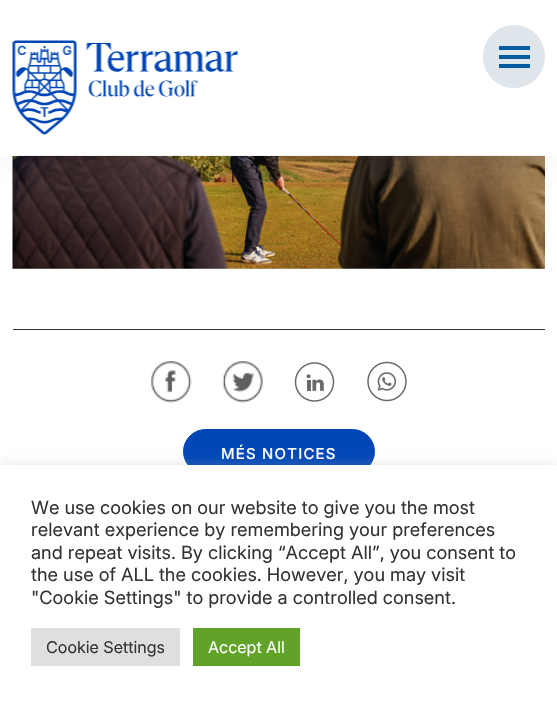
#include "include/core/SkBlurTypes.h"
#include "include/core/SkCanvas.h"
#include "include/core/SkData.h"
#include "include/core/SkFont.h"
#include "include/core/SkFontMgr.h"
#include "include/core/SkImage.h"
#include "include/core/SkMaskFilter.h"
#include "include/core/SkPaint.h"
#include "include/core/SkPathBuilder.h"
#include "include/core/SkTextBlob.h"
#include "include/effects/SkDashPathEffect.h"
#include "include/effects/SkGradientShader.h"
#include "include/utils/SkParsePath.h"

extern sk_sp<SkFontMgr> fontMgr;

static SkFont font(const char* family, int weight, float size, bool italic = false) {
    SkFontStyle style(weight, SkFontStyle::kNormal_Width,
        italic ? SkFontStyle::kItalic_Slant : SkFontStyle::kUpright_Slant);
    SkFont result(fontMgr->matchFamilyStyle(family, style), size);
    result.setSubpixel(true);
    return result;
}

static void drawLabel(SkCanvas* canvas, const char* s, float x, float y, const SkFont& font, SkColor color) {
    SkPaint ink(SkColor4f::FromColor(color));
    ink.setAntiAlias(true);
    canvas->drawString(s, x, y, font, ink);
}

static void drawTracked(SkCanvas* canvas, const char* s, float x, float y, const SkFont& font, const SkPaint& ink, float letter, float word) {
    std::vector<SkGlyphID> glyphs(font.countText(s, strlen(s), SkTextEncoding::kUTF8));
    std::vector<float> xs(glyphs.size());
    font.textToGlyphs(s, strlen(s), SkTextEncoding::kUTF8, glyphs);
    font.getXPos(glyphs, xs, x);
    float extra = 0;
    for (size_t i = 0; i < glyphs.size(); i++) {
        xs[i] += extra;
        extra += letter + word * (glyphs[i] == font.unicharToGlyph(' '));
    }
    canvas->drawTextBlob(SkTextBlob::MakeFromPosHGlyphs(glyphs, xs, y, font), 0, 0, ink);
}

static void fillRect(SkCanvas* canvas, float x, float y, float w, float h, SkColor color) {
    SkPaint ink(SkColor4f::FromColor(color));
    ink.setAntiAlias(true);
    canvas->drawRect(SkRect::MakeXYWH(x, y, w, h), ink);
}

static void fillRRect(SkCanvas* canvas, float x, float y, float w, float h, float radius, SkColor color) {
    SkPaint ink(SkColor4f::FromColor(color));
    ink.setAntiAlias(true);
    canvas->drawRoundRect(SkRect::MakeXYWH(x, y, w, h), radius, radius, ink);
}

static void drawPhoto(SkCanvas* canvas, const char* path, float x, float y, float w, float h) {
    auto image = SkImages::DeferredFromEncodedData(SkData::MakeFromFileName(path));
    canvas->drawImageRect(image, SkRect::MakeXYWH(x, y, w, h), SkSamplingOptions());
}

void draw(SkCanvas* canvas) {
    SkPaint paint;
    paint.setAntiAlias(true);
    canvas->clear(0xFFFFFFFF);
    drawPhoto(canvas, "assets/img2.png", 12, 156, 533, 113);
    paint.setColor(0x26232323);
    paint.setMaskFilter(SkMaskFilter::MakeBlur(kNormal_SkBlurStyle, 22));
    canvas->drawRect(SkRect::MakeXYWH(15, 31, 528, 127), paint);
    paint.setMaskFilter(nullptr);
    fillRect(canvas, 0, 0, 557, 156, 0xFFFFFFFF);
    fillRect(canvas, 13, 155, 532, 1, 0xFFF2F2F2);
    drawPhoto(canvas, "assets/img1.png", 12, 40, 226, 95);
    fillRRect(canvas, 483, 25, 62, 63, 31, 0xFFDEE5EB);
    fillRect(canvas, 499, 46, 31, 4, 0xFF005CA1);
    fillRect(canvas, 499, 55, 31, 4, 0xFF005CA1);
    fillRect(canvas, 499, 64, 31, 4, 0xFF005CA1);
    fillRect(canvas, 13, 329, 532, 1, 0xFF373737);
    drawPhoto(canvas, "assets/img3.png", 151, 361, 41, 42);
    drawPhoto(canvas, "assets/img4.png", 222, 361, 41, 42);
    drawPhoto(canvas, "assets/img5.png", 294, 362, 41, 40);
    drawPhoto(canvas, "assets/img6.png", 367, 361, 40, 41);
    paint.setColor(0xFF0046B7);
    canvas->drawRoundRect(SkRect::MakeXYWH(183.5f, 429.5f, 191, 44), 22, 22, paint);
    paint.setStroke(true);
    paint.setStrokeWidth(1);
    canvas->drawRoundRect(SkRect::MakeXYWH(183.5f, 429.5f, 191, 44), 22, 22, paint);
    SkFont font1 = font("Inter", 500, 15);
    paint.setStroke(false);
    paint.setColor(0xFFFFFFFF);
    drawTracked(canvas, "MÉS NOTICES", 221, 459, font1, paint, 1.25f, 0);
    paint.setColor(0x4DACABAB);
    paint.setMaskFilter(SkMaskFilter::MakeBlur(kNormal_SkBlurStyle, 6));
    canvas->drawRect(SkRect::MakeXYWH(0, 464, 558, 239), paint);
    paint.setMaskFilter(nullptr);
    fillRect(canvas, 0, 465, 557, 238, 0xFFFFFFFF);
    SkFont font2 = font("Inter", 400, 18.3f);
    drawLabel(canvas, "We use cookies on our website to give you the most", 31, 514, font2, 0xFF333333);
    drawLabel(canvas, "relevant experience by remembering your preferences", 31, 536, font2, 0xFF333333);
    drawLabel(canvas, "and repeat visits. By clicking “Accept All”, you consent to", 31, 559, font2, 0xFF333333);
    drawLabel(canvas, "the use of ALL the cookies. However, you may visit", 31, 581, font2, 0xFF333333);
    drawLabel(canvas, "\"Cookie Settings\" to provide a controlled consent.", 31, 604, font2, 0xFF333333);
    fillRect(canvas, 31, 628, 149, 38, 0xFFDEDFE0);
    SkFont font3 = font("Inter", 400, 16.25f);
    drawLabel(canvas, "Cookie Settings", 46, 653, font3, 0xFF333333);
    fillRect(canvas, 193, 628, 107, 38, 0xFF61A229);
    drawLabel(canvas, "Accept All", 208, 653, font3, 0xFFFFFFFF);
}
